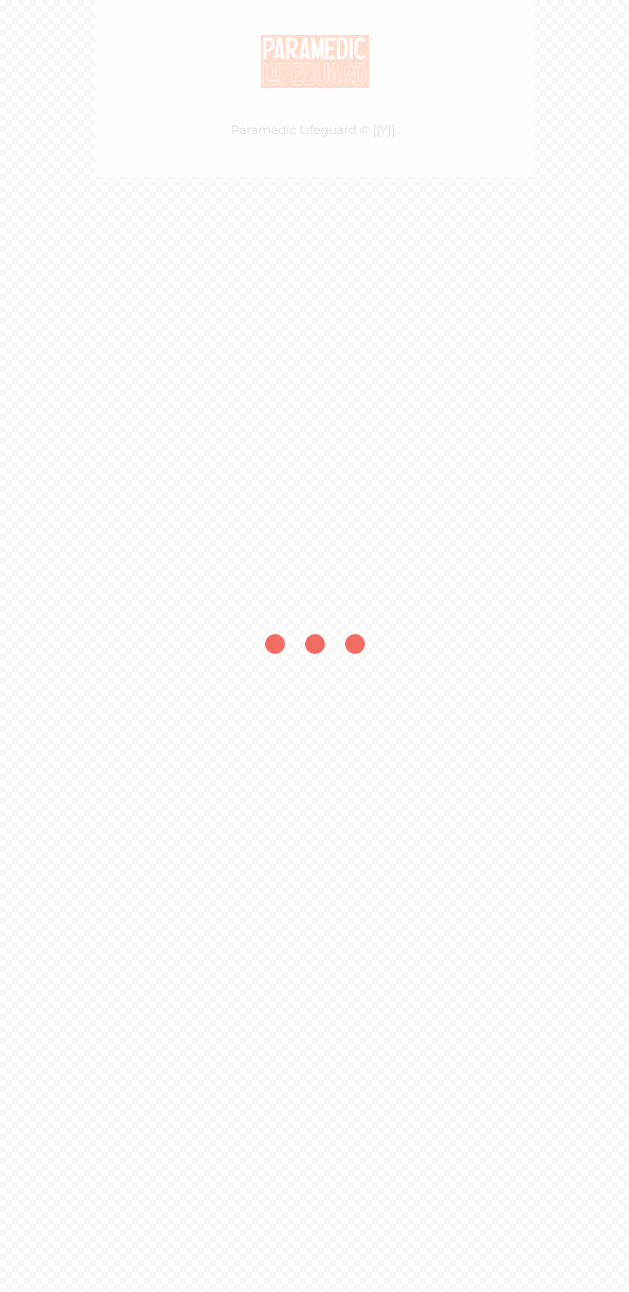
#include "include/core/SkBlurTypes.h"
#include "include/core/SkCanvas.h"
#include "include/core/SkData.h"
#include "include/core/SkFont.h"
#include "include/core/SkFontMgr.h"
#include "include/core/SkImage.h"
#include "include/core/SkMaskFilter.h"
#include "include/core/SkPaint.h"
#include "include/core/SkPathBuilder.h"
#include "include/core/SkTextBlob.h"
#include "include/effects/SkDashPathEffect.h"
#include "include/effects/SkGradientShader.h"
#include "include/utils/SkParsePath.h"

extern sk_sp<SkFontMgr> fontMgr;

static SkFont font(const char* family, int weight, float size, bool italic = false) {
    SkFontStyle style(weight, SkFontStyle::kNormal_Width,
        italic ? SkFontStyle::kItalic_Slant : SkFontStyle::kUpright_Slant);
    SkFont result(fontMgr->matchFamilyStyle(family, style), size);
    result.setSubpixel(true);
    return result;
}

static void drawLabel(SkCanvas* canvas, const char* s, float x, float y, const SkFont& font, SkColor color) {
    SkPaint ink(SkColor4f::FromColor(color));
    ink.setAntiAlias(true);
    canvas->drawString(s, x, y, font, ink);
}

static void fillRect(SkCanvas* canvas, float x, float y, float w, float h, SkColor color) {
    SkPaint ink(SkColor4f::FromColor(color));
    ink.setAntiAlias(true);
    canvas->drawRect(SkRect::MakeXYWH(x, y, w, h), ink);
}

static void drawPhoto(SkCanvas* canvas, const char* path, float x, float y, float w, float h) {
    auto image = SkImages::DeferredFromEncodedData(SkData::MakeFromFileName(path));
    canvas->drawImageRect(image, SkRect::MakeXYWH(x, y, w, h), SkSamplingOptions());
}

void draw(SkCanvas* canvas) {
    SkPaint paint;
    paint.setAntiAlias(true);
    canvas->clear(0xFFFFFFFF);
    drawPhoto(canvas, "assets/img1.png", 0, 0, 629, 1292);
    fillRect(canvas, 95, 0, 440, 177, 0xFFFDFDFD);
    drawPhoto(canvas, "assets/img2.png", 261, 35, 108, 53);
    SkFont font1 = font("Montserrat", 300, 12);
    drawLabel(canvas, "Paramedic Lifeguard © {{Y}}.", 231, 134, font1, 0xFFDADADA);
    paint.setColor(0xCCF0473C);
    canvas->drawCircle(275, 644, 10, paint);
    canvas->drawCircle(315, 644, 10, paint);
    canvas->drawCircle(355, 644, 10, paint);
}
